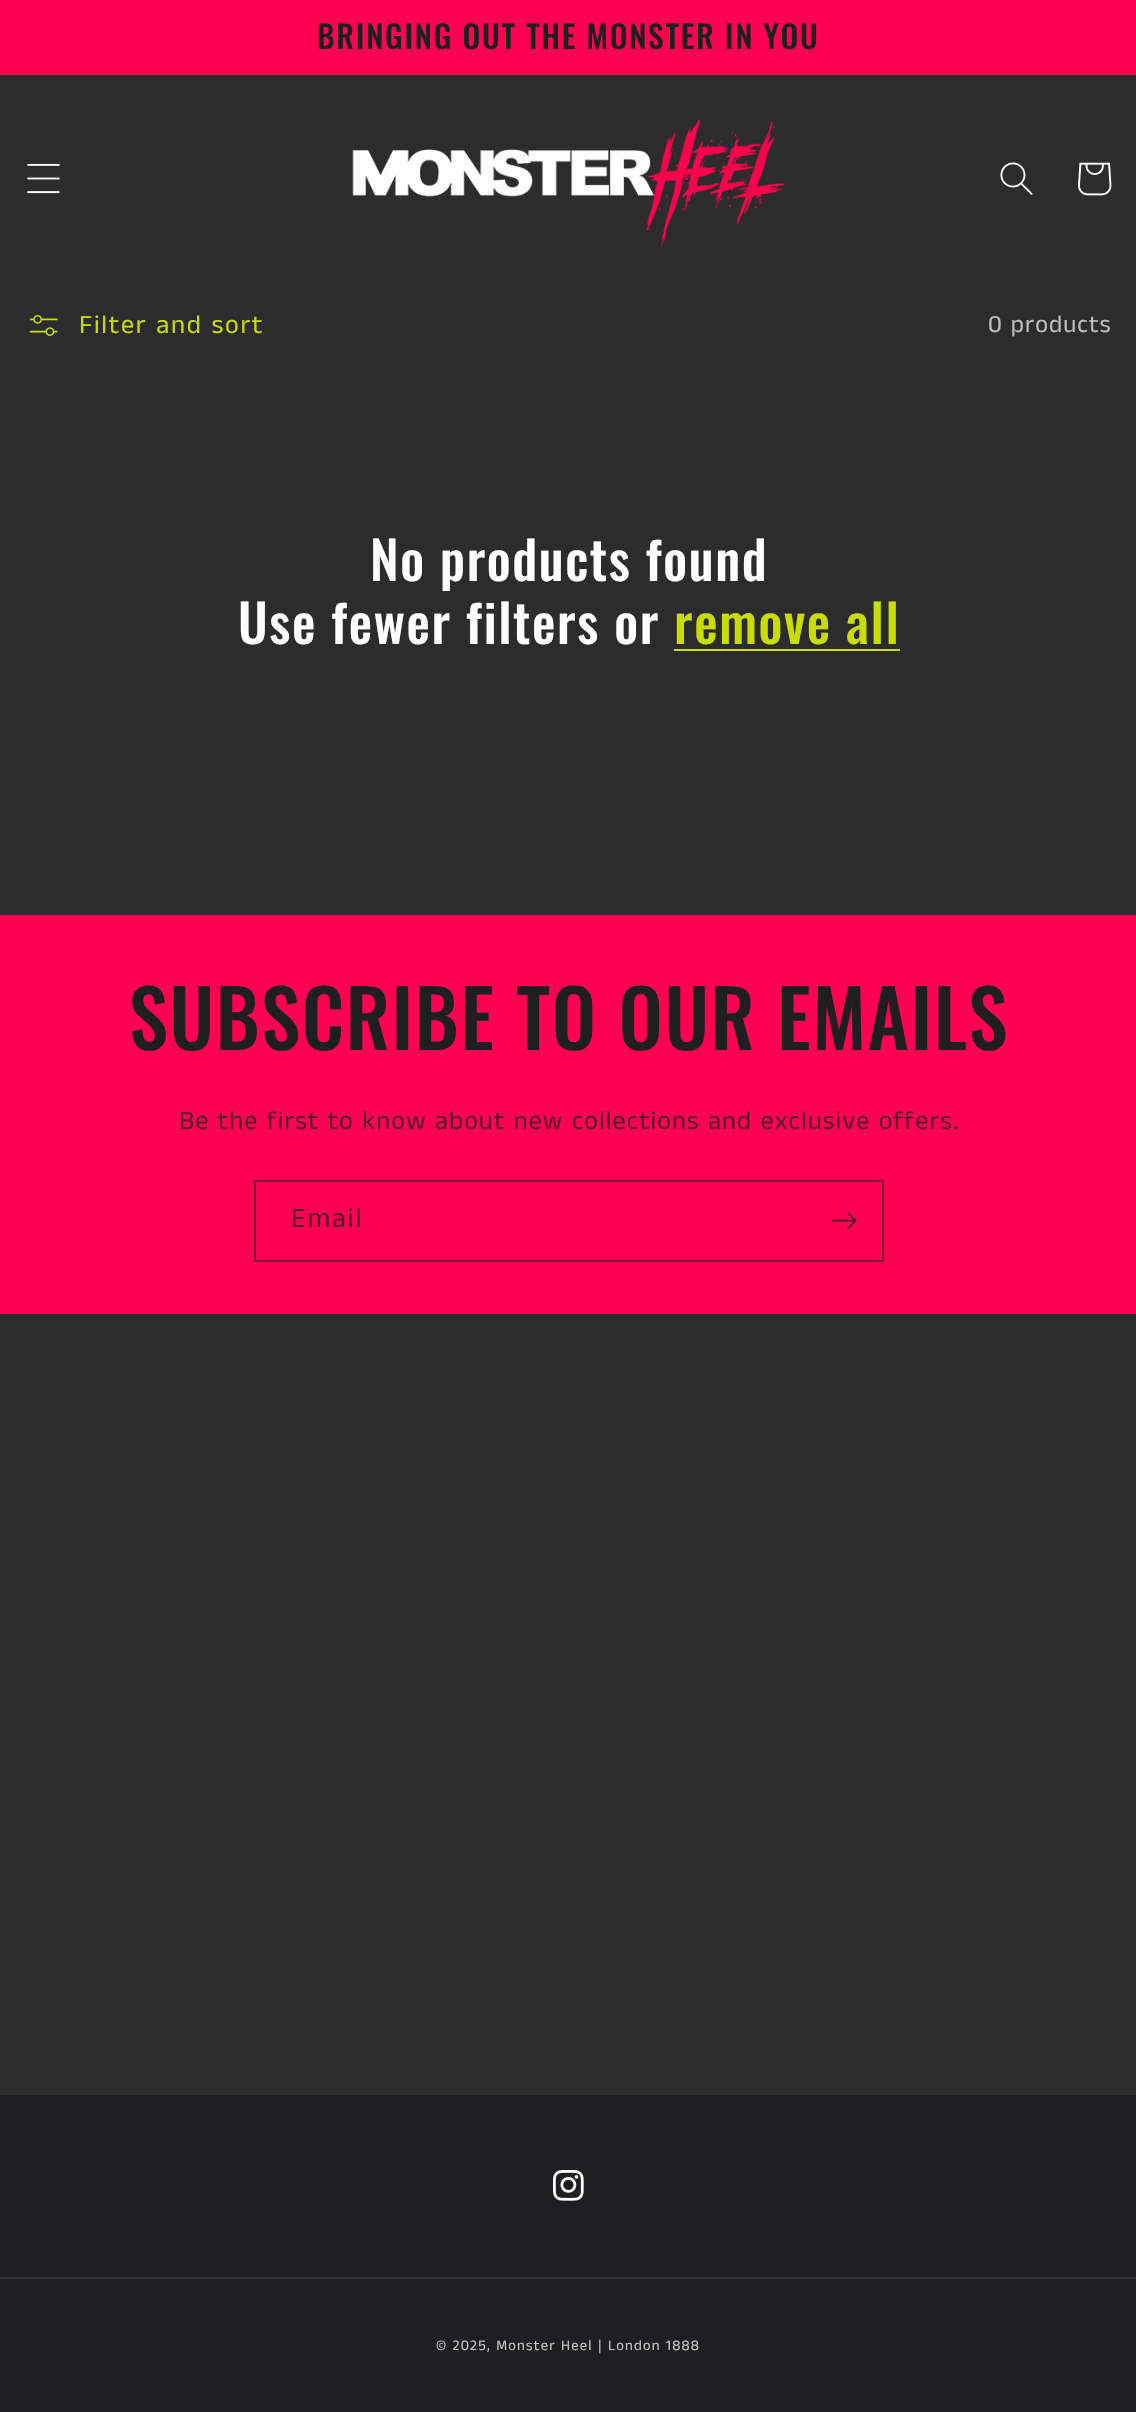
#include "include/core/SkBlurTypes.h"
#include "include/core/SkCanvas.h"
#include "include/core/SkData.h"
#include "include/core/SkFont.h"
#include "include/core/SkFontMgr.h"
#include "include/core/SkImage.h"
#include "include/core/SkMaskFilter.h"
#include "include/core/SkPaint.h"
#include "include/core/SkPathBuilder.h"
#include "include/core/SkTextBlob.h"
#include "include/effects/SkDashPathEffect.h"
#include "include/effects/SkGradientShader.h"
#include "include/utils/SkParsePath.h"

extern sk_sp<SkFontMgr> fontMgr;

static SkFont font(const char* family, int weight, float size, bool italic = false) {
    SkFontStyle style(weight, SkFontStyle::kNormal_Width,
        italic ? SkFontStyle::kItalic_Slant : SkFontStyle::kUpright_Slant);
    SkFont result(fontMgr->matchFamilyStyle(family, style), size);
    result.setSubpixel(true);
    return result;
}

static void drawTracked(SkCanvas* canvas, const char* s, float x, float y, const SkFont& font, const SkPaint& ink, float letter, float word) {
    std::vector<SkGlyphID> glyphs(font.countText(s, strlen(s), SkTextEncoding::kUTF8));
    std::vector<float> xs(glyphs.size());
    font.textToGlyphs(s, strlen(s), SkTextEncoding::kUTF8, glyphs);
    font.getXPos(glyphs, xs, x);
    float extra = 0;
    for (size_t i = 0; i < glyphs.size(); i++) {
        xs[i] += extra;
        extra += letter + word * (glyphs[i] == font.unicharToGlyph(' '));
    }
    canvas->drawTextBlob(SkTextBlob::MakeFromPosHGlyphs(glyphs, xs, y, font), 0, 0, ink);
}

static void fillRect(SkCanvas* canvas, float x, float y, float w, float h, SkColor color) {
    SkPaint ink(SkColor4f::FromColor(color));
    ink.setAntiAlias(true);
    canvas->drawRect(SkRect::MakeXYWH(x, y, w, h), ink);
}

static void drawPhoto(SkCanvas* canvas, const char* path, float x, float y, float w, float h) {
    auto image = SkImages::DeferredFromEncodedData(SkData::MakeFromFileName(path));
    canvas->drawImageRect(image, SkRect::MakeXYWH(x, y, w, h), SkSamplingOptions());
}

void draw(SkCanvas* canvas) {
    SkPaint paint;
    paint.setAntiAlias(true);
    canvas->clear(0xFF2C2C2D);
    fillRect(canvas, 0, 0, 1136, 74, 0xFFFC0250);
    fillRect(canvas, 0, 74, 1136, 1, 0xFFEA044C);
    SkFont font1 = font("Oswald", 500, 31.5f);
    paint.setColor(0xFF1F1F21);
    drawTracked(canvas, "BRINGING OUT THE MONSTER IN YOU", 317, 49, font1, paint, 1.75f, 0);
    drawPhoto(canvas, "assets/img1.png", 27, 163, 33, 31);
    drawPhoto(canvas, "assets/img2.png", 352, 120, 434, 129);
    drawPhoto(canvas, "assets/img3.png", 1000, 162, 33, 33);
    drawPhoto(canvas, "assets/img4.png", 1078, 162, 34, 34);
    drawPhoto(canvas, "assets/img5.png", 29, 315, 29, 21);
    SkFont font2 = font("Anek Tamil", 400, 26.25f);
    paint.setColor(0xFFC8DD08);
    drawTracked(canvas, "Filter and sort", 79, 333, font2, paint, 1.75f, 0);
    SkFont font3 = font("Anek Tamil", 400, 24.5f);
    paint.setColor(0xFFC0C0C0);
    drawTracked(canvas, "0 products", 988, 332, font3, paint, 1.05f, 0);
    SkFont font4 = font("Oswald", 500, 52.5f);
    paint.setColor(0xFFFFFFFF);
    drawTracked(canvas, "No products found", 370, 581, font4, paint, 1.6f, 0);
    drawTracked(canvas, "Use fewer filters or", 238, 644, font4, paint, 1.6f, 0);
    paint.setColor(0xFFC8DD08);
    drawTracked(canvas, "remove all", 674, 644, font4, paint, 1.6f, 0);
    fillRect(canvas, 674, 649, 226, 2, 0xFFC8DD08);
    fillRect(canvas, 0, 915, 1136, 399, 0xFFFC0250);
    SkFont font5 = font("Oswald", 500, 78.75f);
    paint.setColor(0xFF1F1F21);
    drawTracked(canvas, "SUBSCRIBE TO OUR EMAILS", 129, 1050, font5, paint, 1.6f, 0);
    paint.setColor(0xFF56182D);
    drawTracked(canvas, "Be the first to know about new collections and exclusive offers.", 179, 1129, font2, paint, 1.05f, 0);
    paint.setStroke(true);
    paint.setStrokeWidth(2);
    paint.setColor(0xFF821236);
    canvas->drawRect(SkRect::MakeXYWH(255, 1181, 628, 80), paint);
    SkFont font6 = font("Anek Tamil", 400, 28);
    paint.setStroke(false);
    paint.setColor(0xFF56182D);
    drawTracked(canvas, "Email", 291, 1227, font6, paint, 1.75f, 0);
    drawPhoto(canvas, "assets/img6.png", 832, 1212, 25, 17);
    fillRect(canvas, 0, 2095, 1136, 317, 0xFF1F1F21);
    drawPhoto(canvas, "assets/img7.png", 553, 2170, 31, 31);
    fillRect(canvas, 0, 2277, 1136, 2, 0xFF313133);
    SkFont font7 = font("Anek Tamil", 400, 14.6f);
    paint.setColor(0xFFC7C7C8);
    drawTracked(canvas, "© 2025, Monster Heel | London 1888", 436, 2350, font7, paint, 1.2f, 0);
}
